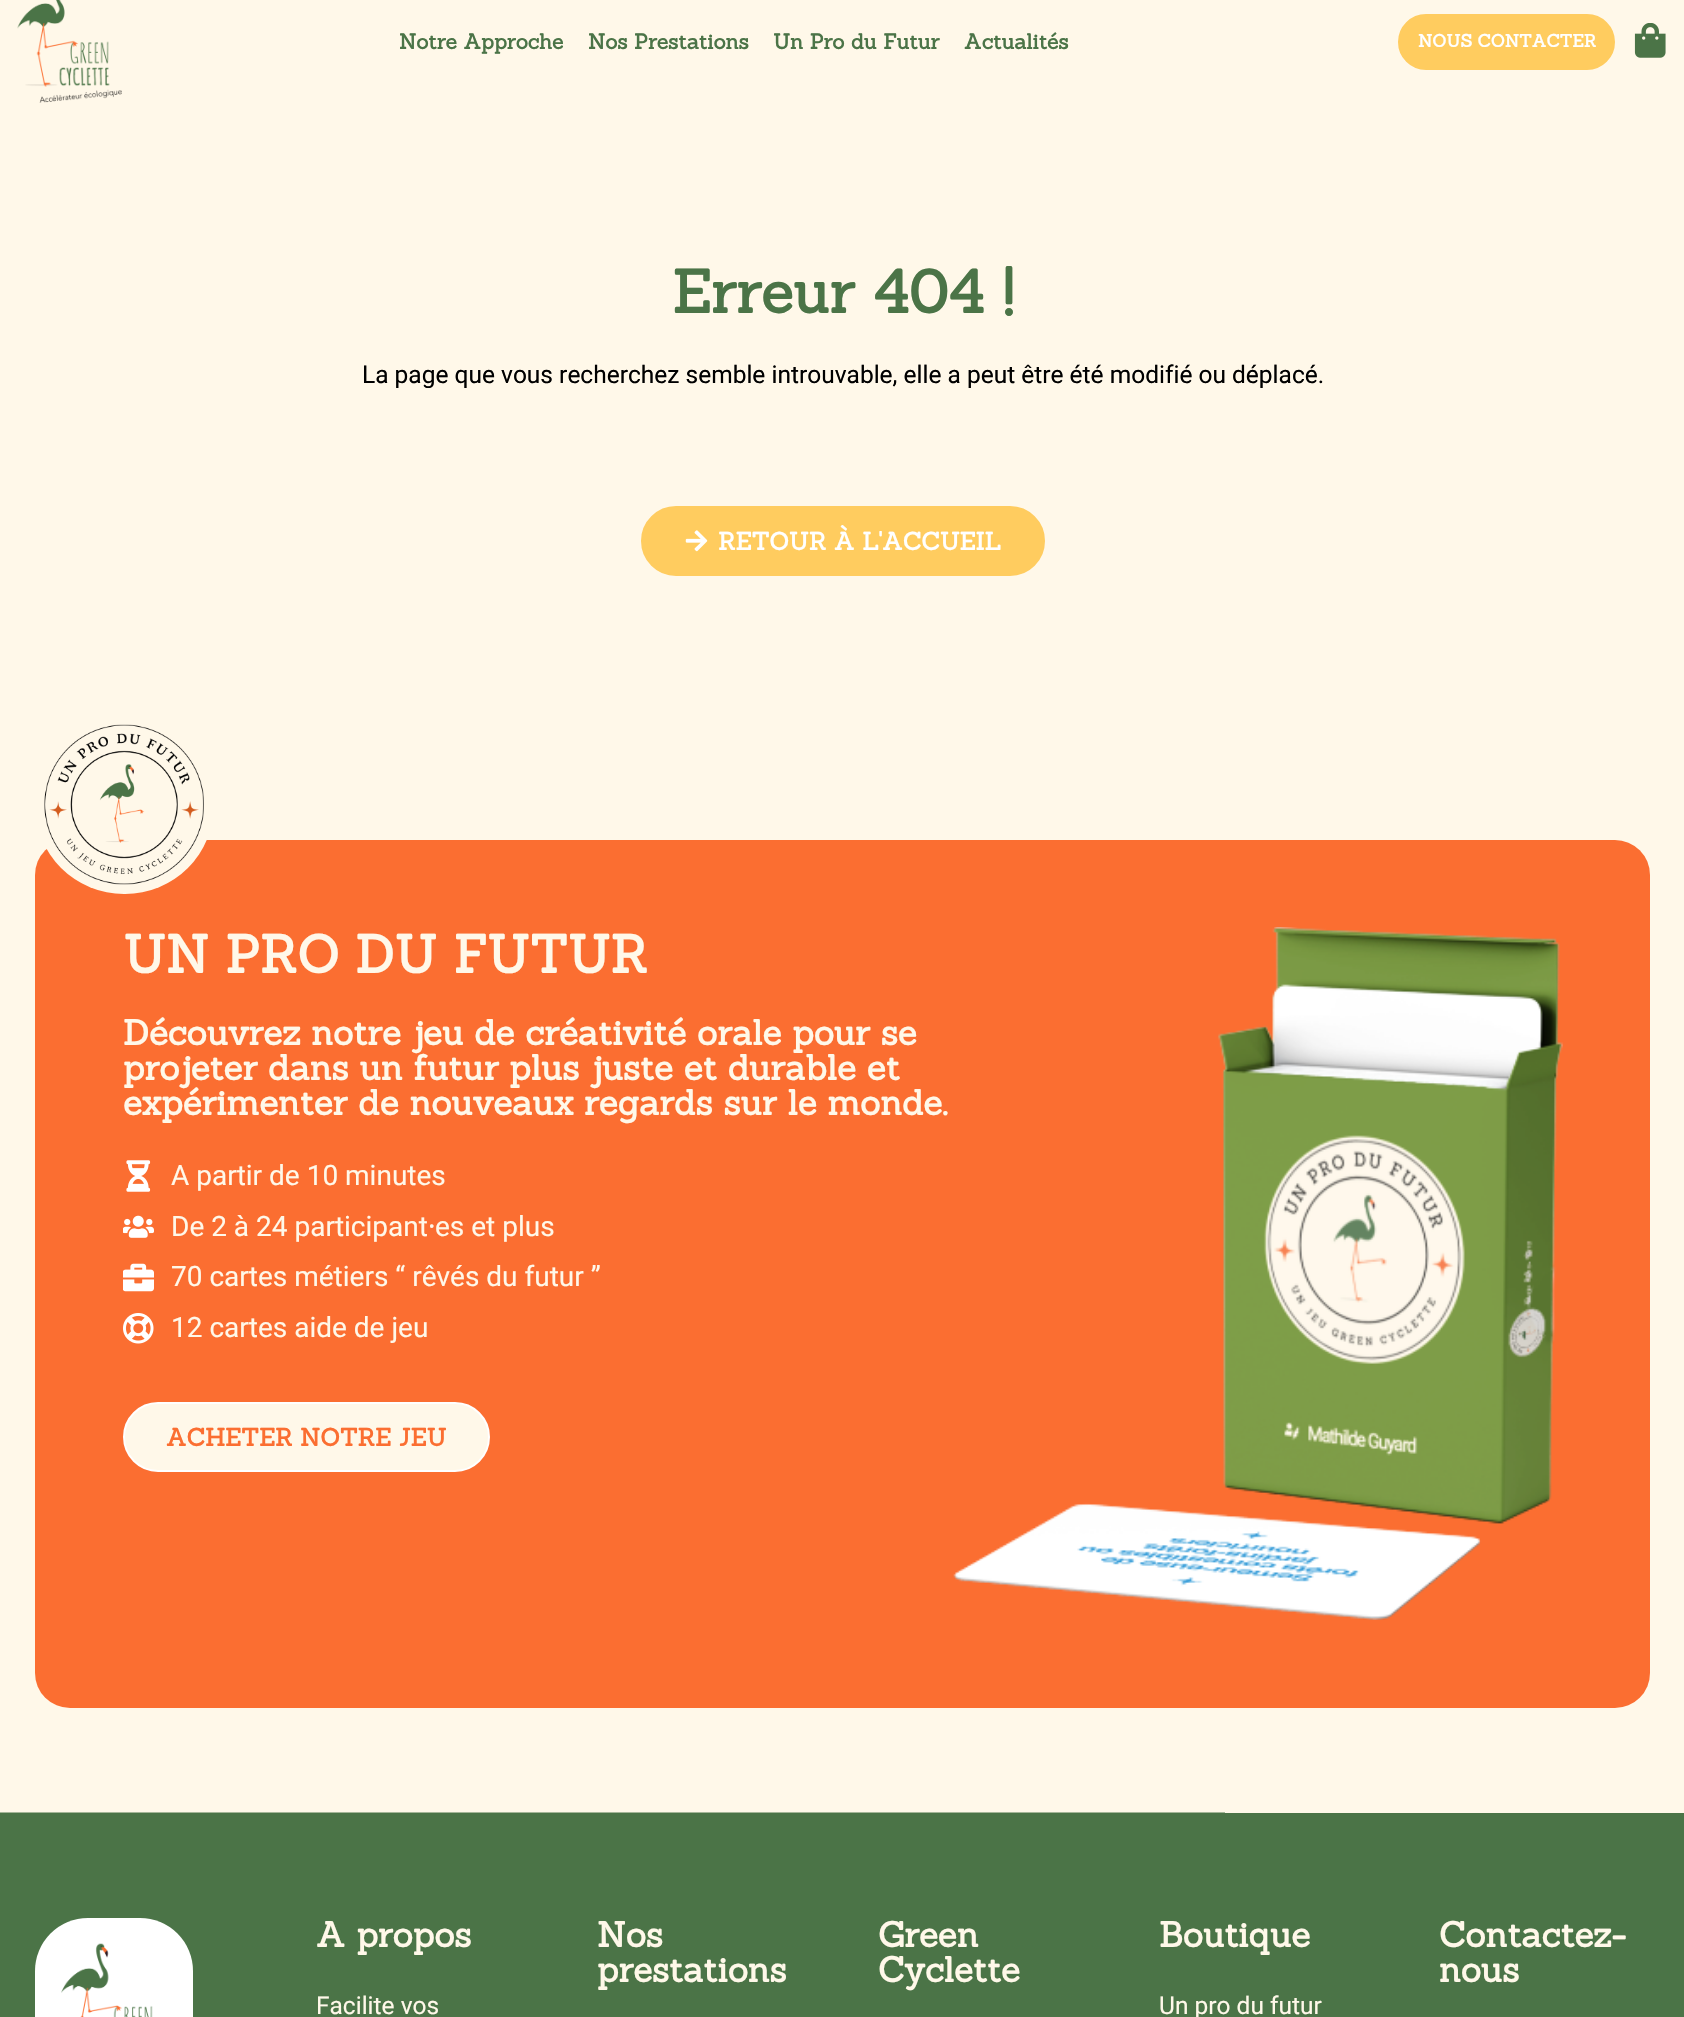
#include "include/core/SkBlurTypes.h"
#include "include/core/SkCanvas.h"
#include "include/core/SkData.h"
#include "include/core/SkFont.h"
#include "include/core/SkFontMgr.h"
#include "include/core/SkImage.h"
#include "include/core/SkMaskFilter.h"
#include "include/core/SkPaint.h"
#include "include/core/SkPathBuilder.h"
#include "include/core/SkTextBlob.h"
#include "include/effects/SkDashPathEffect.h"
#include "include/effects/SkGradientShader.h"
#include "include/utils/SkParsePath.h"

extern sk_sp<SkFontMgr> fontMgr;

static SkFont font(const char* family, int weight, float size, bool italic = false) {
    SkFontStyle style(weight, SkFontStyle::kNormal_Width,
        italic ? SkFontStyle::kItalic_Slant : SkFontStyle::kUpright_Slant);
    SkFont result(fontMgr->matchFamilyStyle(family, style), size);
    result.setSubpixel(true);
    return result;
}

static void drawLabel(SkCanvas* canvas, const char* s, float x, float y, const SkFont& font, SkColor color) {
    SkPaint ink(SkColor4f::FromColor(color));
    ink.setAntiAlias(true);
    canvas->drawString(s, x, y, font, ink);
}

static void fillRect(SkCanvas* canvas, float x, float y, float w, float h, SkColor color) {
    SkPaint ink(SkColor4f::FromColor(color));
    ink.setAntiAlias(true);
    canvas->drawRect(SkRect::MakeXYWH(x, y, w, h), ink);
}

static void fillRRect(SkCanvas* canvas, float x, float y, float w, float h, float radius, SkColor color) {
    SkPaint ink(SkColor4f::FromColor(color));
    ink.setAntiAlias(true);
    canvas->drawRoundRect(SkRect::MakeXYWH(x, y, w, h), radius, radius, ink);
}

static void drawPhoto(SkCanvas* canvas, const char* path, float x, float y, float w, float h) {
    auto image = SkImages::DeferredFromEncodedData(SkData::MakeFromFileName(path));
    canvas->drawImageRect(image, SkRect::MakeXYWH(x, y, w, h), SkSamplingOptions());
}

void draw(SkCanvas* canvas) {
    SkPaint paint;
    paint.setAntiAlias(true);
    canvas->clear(0xFFFFF8E9);
    drawPhoto(canvas, "assets/img1.png", 17, 0, 105, 103);
    SkFont font1 = font("Sanchez", 700, 21);
    drawLabel(canvas, "Notre Approche", 399, 49, font1, 0xFF4B7447);
    drawLabel(canvas, "Nos Prestations", 588, 49, font1, 0xFF4B7447);
    drawLabel(canvas, "Un Pro du Futur", 773, 49, font1, 0xFF4B7447);
    drawLabel(canvas, "Actualités", 964, 49, font1, 0xFF4B7447);
    paint.setColor(0xFFFFCC5F);
    canvas->drawRoundRect(SkRect::MakeXYWH(1399, 15, 215, 54), 27, 27, paint);
    paint.setStroke(true);
    paint.setStrokeWidth(2);
    canvas->drawRoundRect(SkRect::MakeXYWH(1399, 15, 215, 54), 27, 27, paint);
    SkFont font2 = font("Sanchez", 700, 17.5f);
    drawLabel(canvas, "NOUS CONTACTER", 1418, 47, font2, 0xFFFFFFFF);
    drawPhoto(canvas, "assets/img2.png", 1634, 23, 32, 35);
    SkFont font3 = font("Sanchez", 700, 59.5f);
    drawLabel(canvas, "Erreur 404 !", 672, 313, font3, 0xFF4B7447);
    SkFont font4 = font("Roboto", 400, 24.5f);
    drawLabel(canvas, "La page que vous recherchez semble introuvable, elle a peut être été modifié ou déplacé.", 362, 383, font4, 0xFF000000);
    paint.setStroke(false);
    canvas->drawRoundRect(SkRect::MakeXYWH(642, 507, 402, 68), 34, 34, paint);
    paint.setStroke(true);
    canvas->drawRoundRect(SkRect::MakeXYWH(642, 507, 402, 68), 34, 34, paint);
    drawPhoto(canvas, "assets/img3.png", 685, 530, 23, 22);
    SkFont font5 = font("Sanchez", 700, 24.5f);
    drawLabel(canvas, "RETOUR À L'ACCUEIL", 718, 550, font5, 0xFFFFFFFF);
    fillRRect(canvas, 35, 840, 1615, 868, 35, 0xFFFB6E31);
    fillRRect(canvas, 35, 716, 179, 178, 89, 0xFFFFF8E9);
    drawPhoto(canvas, "assets/img4.png", 44, 724, 160, 161);
    SkFont font6 = font("Sanchez", 700, 52.5f);
    drawLabel(canvas, "UN PRO DU FUTUR", 123, 973, font6, 0xFFFFF8E9);
    SkFont font7 = font("Sanchez", 700, 35);
    drawLabel(canvas, "Découvrez notre jeu de créativité orale pour se", 123, 1045, font7, 0xFFFFF8E9);
    drawLabel(canvas, "projeter dans un futur plus juste et durable et", 123, 1080, font7, 0xFFFFF8E9);
    drawLabel(canvas, "expérimenter de nouveaux regards sur le monde.", 123, 1115, font7, 0xFFFFF8E9);
    drawPhoto(canvas, "assets/img5.png", 126, 1160, 25, 32);
    SkFont font8 = font("Roboto", 400, 28);
    drawLabel(canvas, "A partir de 10 minutes", 171, 1185, font8, 0xFFFFF8E9);
    drawPhoto(canvas, "assets/img6.png", 123, 1215, 31, 23);
    drawLabel(canvas, "De 2 à 24 participant", 171, 1236, font8, 0xFFFFF8E9);
    SkFont font9 = font("Noto Sans", 400, 28);
    drawLabel(canvas, "⸱", 428, 1236, font9, 0xFFFFF8E9);
    drawLabel(canvas, "es et plus", 435, 1236, font8, 0xFFFFF8E9);
    drawPhoto(canvas, "assets/img7.png", 123, 1263, 31, 29);
    drawLabel(canvas, "70 cartes métiers “ rêvés du futur ”", 171, 1286, font8, 0xFFFFF8E9);
    drawPhoto(canvas, "assets/img8.png", 123, 1313, 31, 31);
    drawLabel(canvas, "12 cartes aide de jeu", 171, 1337, font8, 0xFFFFF8E9);
    paint.setStroke(false);
    paint.setColor(0xFFFFF8E9);
    canvas->drawRoundRect(SkRect::MakeXYWH(124, 1403, 365, 68), 34, 34, paint);
    paint.setStroke(true);
    paint.setColor(0xFFFFFFFF);
    canvas->drawRoundRect(SkRect::MakeXYWH(124, 1403, 365, 68), 34, 34, paint);
    drawLabel(canvas, "ACHETER NOTRE JEU", 166, 1446, font5, 0xFFFB6E31);
    drawPhoto(canvas, "assets/img9.png", 953, 927, 610, 693);
    fillRect(canvas, 0, 1813, 1684, 204, 0xFF4B7447);
    fillRect(canvas, 0, 1812, 1225, 1, 0xFFA5B698);
    fillRRect(canvas, 35, 1918, 158, 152, 53, 0xFFFFFFFF);
    drawPhoto(canvas, "assets/img10.png", 61, 1943, 92, 74);
    drawLabel(canvas, "A propos", 316, 1947, font7, 0xFFFFF8E9);
    drawLabel(canvas, "Facilite vos", 316, 2014, font4, 0xFFFFF8E9);
    drawLabel(canvas, "Nos", 597, 1947, font7, 0xFFFFF8E9);
    drawLabel(canvas, "prestations", 597, 1982, font7, 0xFFFFF8E9);
    drawLabel(canvas, "Green", 878, 1947, font7, 0xFFFFF8E9);
    drawLabel(canvas, "Cyclette", 878, 1982, font7, 0xFFFFF8E9);
    drawLabel(canvas, "Boutique", 1159, 1947, font7, 0xFFFFF8E9);
    drawLabel(canvas, "Un pro du futur", 1159, 2014, font4, 0xFFFFF8E9);
    drawLabel(canvas, "Contactez-", 1439, 1947, font7, 0xFFFFF8E9);
    drawLabel(canvas, "nous", 1439, 1982, font7, 0xFFFFF8E9);
}
